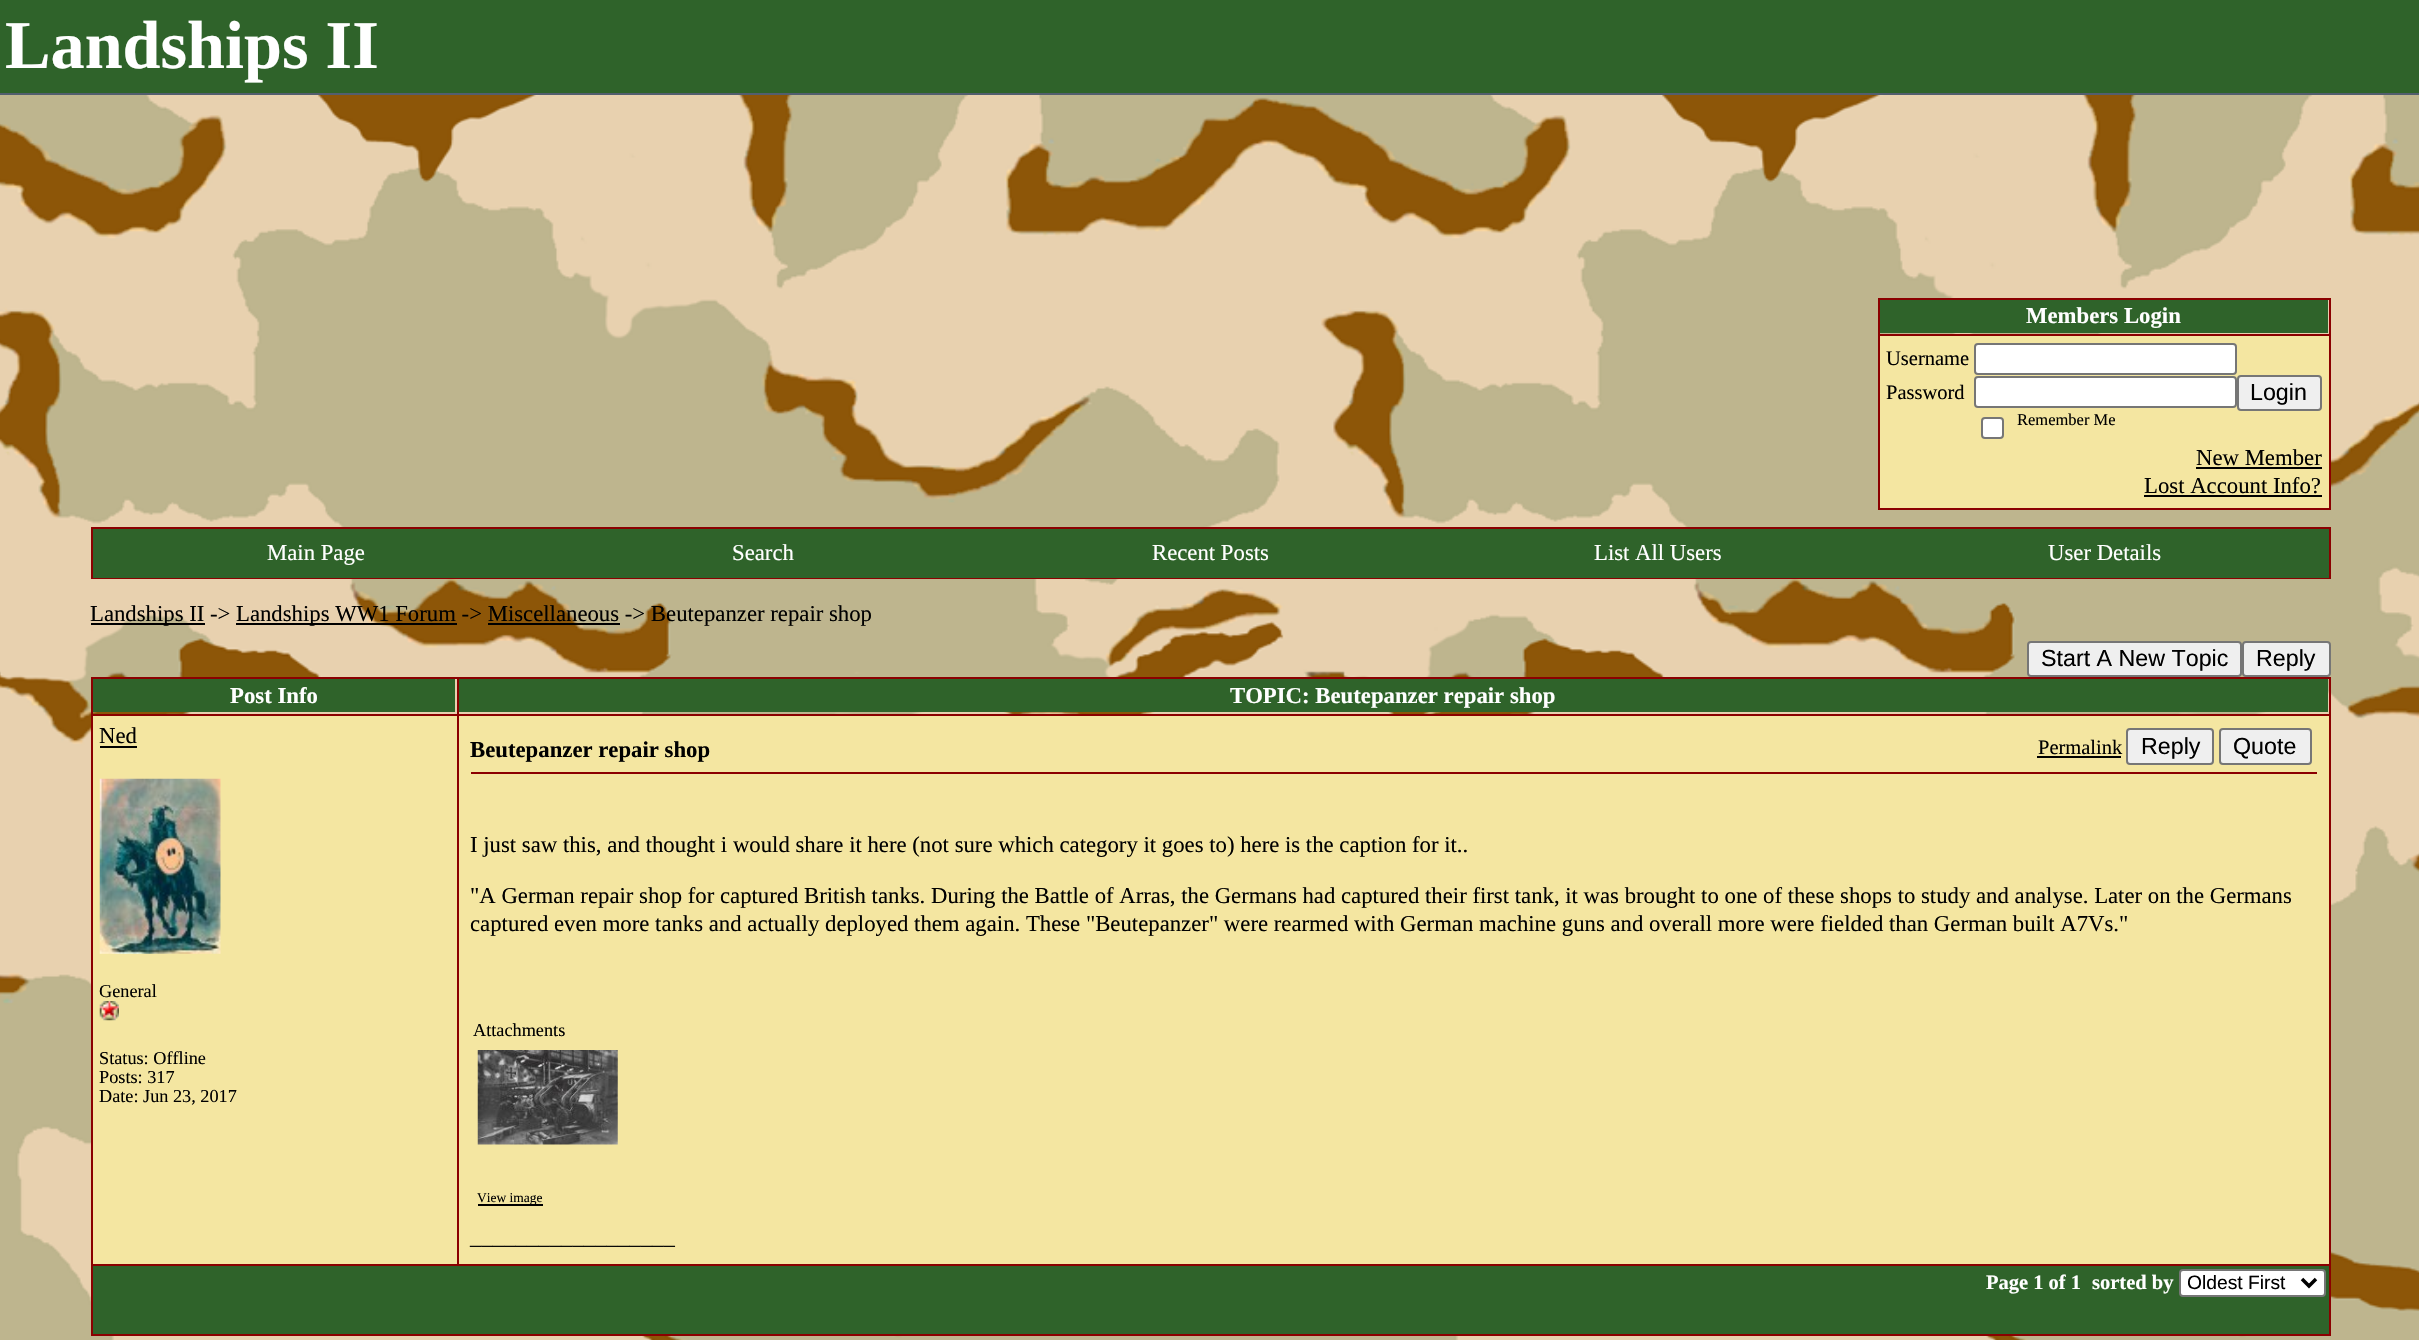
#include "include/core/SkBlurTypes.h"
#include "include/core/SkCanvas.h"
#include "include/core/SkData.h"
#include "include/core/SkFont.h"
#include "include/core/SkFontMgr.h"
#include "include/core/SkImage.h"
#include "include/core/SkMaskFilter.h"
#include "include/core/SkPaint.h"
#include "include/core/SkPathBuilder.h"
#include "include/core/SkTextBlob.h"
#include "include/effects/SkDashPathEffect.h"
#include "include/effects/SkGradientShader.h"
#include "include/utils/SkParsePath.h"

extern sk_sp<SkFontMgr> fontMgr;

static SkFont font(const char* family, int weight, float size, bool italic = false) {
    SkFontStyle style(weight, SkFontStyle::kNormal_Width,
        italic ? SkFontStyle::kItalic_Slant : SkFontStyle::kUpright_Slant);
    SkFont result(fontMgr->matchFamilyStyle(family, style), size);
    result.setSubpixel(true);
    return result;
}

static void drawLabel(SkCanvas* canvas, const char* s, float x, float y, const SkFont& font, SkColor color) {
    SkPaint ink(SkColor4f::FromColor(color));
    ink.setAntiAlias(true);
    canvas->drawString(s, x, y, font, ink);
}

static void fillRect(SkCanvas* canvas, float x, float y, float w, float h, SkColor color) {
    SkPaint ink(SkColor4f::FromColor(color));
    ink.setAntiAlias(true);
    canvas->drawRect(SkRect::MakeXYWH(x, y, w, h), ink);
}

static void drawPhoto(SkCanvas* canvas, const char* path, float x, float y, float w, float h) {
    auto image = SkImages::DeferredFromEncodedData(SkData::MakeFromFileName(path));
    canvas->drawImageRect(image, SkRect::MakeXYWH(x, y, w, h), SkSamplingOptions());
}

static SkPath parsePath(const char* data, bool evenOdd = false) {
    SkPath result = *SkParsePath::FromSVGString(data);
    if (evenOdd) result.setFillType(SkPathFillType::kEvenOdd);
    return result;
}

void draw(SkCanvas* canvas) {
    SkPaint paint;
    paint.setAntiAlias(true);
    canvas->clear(0xFFFFFFFF);
    drawPhoto(canvas, "assets/img1.png", 0, 95, 2419, 1245);
    fillRect(canvas, 0, 0, 2419, 93, 0xFF2F632A);
    fillRect(canvas, 0, 93, 2419, 2, 0xFF525E6E);
    SkFont font1 = font("Liberation Serif", 700, 68.25f);
    drawLabel(canvas, "Landships II", 5, 68, font1, 0xFFFFFFFF);
    fillRect(canvas, 1878, 298, 453, 2, 0xFF8B0000);
    fillRect(canvas, 2329, 298, 2, 211, 0xFF8B0000);
    fillRect(canvas, 1878, 508, 453, 2, 0xFF8B0000);
    fillRect(canvas, 1878, 298, 2, 211, 0xFF8B0000);
    fillRect(canvas, 1880, 300, 448, 33, 0xFF2F632A);
    fillRect(canvas, 1878, 334, 453, 2, 0xFF8B0000);
    SkFont font2 = font("Liberation Serif", 700, 22.75f);
    drawLabel(canvas, "Members Login", 2026, 323, font2, 0xFFFFFFFF);
    fillRect(canvas, 1880, 336, 449, 172, 0xFFF4E6A1);
    SkFont font3 = font("Liberation Serif", 400, 20.5f);
    drawLabel(canvas, "Username", 1886, 365, font3, 0xFF000000);
    paint.setColor(0xFFFFFFFF);
    canvas->drawRoundRect(SkRect::MakeXYWH(1975, 344, 261, 30), 3, 3, paint);
    paint.setStroke(true);
    paint.setStrokeWidth(2);
    paint.setColor(0xFF767676);
    canvas->drawRoundRect(SkRect::MakeXYWH(1975, 344, 261, 30), 3, 3, paint);
    drawLabel(canvas, "Password", 1886, 399, font3, 0xFF000000);
    paint.setStroke(false);
    paint.setColor(0xFFFFFFFF);
    canvas->drawRoundRect(SkRect::MakeXYWH(1975, 377, 261, 30), 3, 3, paint);
    paint.setStroke(true);
    paint.setColor(0xFF767676);
    canvas->drawRoundRect(SkRect::MakeXYWH(1975, 377, 261, 30), 3, 3, paint);
    paint.setStroke(false);
    paint.setColor(0xFFEFEFEF);
    canvas->drawRoundRect(SkRect::MakeXYWH(2238, 376, 83, 34), 3, 3, paint);
    paint.setStroke(true);
    paint.setColor(0xFF767676);
    canvas->drawRoundRect(SkRect::MakeXYWH(2238, 376, 83, 34), 3, 3, paint);
    SkFont font4 = font("Liberation Sans", 400, 23.25f);
    drawLabel(canvas, "Login", 2250, 400, font4, 0xFF000000);
    paint.setStroke(false);
    paint.setColor(0xFFFFFFFF);
    canvas->drawRoundRect(SkRect::MakeXYWH(1982, 418, 21, 20), 3, 3, paint);
    paint.setStroke(true);
    paint.setColor(0xFF767676);
    canvas->drawRoundRect(SkRect::MakeXYWH(1982, 418, 21, 20), 3, 3, paint);
    SkFont font5 = font("Liberation Serif", 400, 16.5f);
    drawLabel(canvas, "Remember Me", 2017, 425, font5, 0xFF000000);
    SkFont font6 = font("Liberation Serif", 400, 22.75f);
    drawLabel(canvas, "New Member", 2196, 465, font6, 0xFF000000);
    fillRect(canvas, 2196, 467, 126, 2, 0xFF000000);
    drawLabel(canvas, "Lost Account Info?", 2144, 493, font6, 0xFF000000);
    fillRect(canvas, 2144, 495, 178, 2, 0xFF000000);
    paint.setColor(0xFF8B0000);
    canvas->drawRect(SkRect::MakeXYWH(92, 528, 2238, 50), paint);
    fillRect(canvas, 93, 529, 2236, 49, 0xFF2F632A);
    drawLabel(canvas, "Main Page", 267, 560, font6, 0xFFFFFFFF);
    drawLabel(canvas, "Search", 732, 560, font6, 0xFFFFFFFF);
    drawLabel(canvas, "Recent Posts", 1152, 560, font6, 0xFFFFFFFF);
    drawLabel(canvas, "List All Users", 1594, 560, font6, 0xFFFFFFFF);
    drawLabel(canvas, "User Details", 2048, 560, font6, 0xFFFFFFFF);
    fillRect(canvas, 91, 623, 114, 2, 0xFF000000);
    drawLabel(canvas, "Landships II ->", 90, 621, font6, 0xFF000000);
    fillRect(canvas, 236, 623, 221, 2, 0xFF000000);
    drawLabel(canvas, "Landships WW1 Forum -> Miscellaneous -> Beutepanzer repair shop", 236, 621, font6, 0xFF000000);
    fillRect(canvas, 488, 623, 132, 2, 0xFF000000);
    paint.setStroke(false);
    paint.setColor(0xFFEFEFEF);
    canvas->drawRoundRect(SkRect::MakeXYWH(2028, 642, 213, 34), 3, 3, paint);
    paint.setStroke(true);
    paint.setColor(0xFF767676);
    canvas->drawRoundRect(SkRect::MakeXYWH(2028, 642, 213, 34), 3, 3, paint);
    drawLabel(canvas, "Start A New Topic", 2041, 666, font4, 0xFF000000);
    paint.setStroke(false);
    paint.setColor(0xFFEFEFEF);
    canvas->drawRoundRect(SkRect::MakeXYWH(2243, 642, 87, 34), 3, 3, paint);
    paint.setStroke(true);
    paint.setColor(0xFF767676);
    canvas->drawRoundRect(SkRect::MakeXYWH(2243, 642, 87, 34), 3, 3, paint);
    drawLabel(canvas, "Reply", 2256, 666, font4, 0xFF000000);
    fillRect(canvas, 91, 677, 2240, 2, 0xFF8B0000);
    fillRect(canvas, 2329, 677, 2, 658, 0xFF8B0000);
    fillRect(canvas, 91, 1334, 2240, 2, 0xFF8B0000);
    fillRect(canvas, 91, 677, 2, 658, 0xFF8B0000);
    fillRect(canvas, 93, 679, 362, 33, 0xFF2F632A);
    fillRect(canvas, 457, 714, 1874, 2, 0xFF8B0000);
    fillRect(canvas, 91, 1264, 2240, 2, 0xFF8B0000);
    fillRect(canvas, 457, 714, 2, 551, 0xFF8B0000);
    fillRect(canvas, 91, 714, 368, 2, 0xFF8B0000);
    fillRect(canvas, 457, 677, 2, 39, 0xFF8B0000);
    drawLabel(canvas, "Post Info", 230, 703, font2, 0xFFFFFFFF);
    fillRect(canvas, 459, 679, 1869, 33, 0xFF2F632A);
    drawLabel(canvas, "TOPIC: Beutepanzer repair shop", 1230, 703, font2, 0xFFFFFFFF);
    fillRect(canvas, 93, 716, 364, 548, 0xFFF4E6A1);
    drawLabel(canvas, "Ned", 99, 743, font6, 0xFF000000);
    fillRect(canvas, 100, 746, 37, 2, 0xFF000000);
    drawPhoto(canvas, "assets/img2.png", 99, 778, 122, 176);
    SkFont font7 = font("Liberation Serif", 400, 18.25f);
    drawLabel(canvas, "General", 99, 997, font7, 0xFF000000);
    drawPhoto(canvas, "assets/img3.png", 99, 1001, 20, 20);
    drawLabel(canvas, "Status: Offline", 99, 1064, font7, 0xFF000000);
    drawLabel(canvas, "Posts: 317", 99, 1083, font7, 0xFF000000);
    drawLabel(canvas, "Date: Jun 23, 2017", 99, 1102, font7, 0xFF000000);
    fillRect(canvas, 459, 716, 1870, 548, 0xFFF4E6A1);
    drawLabel(canvas, "Beutepanzer repair shop", 470, 757, font2, 0xFF000000);
    drawLabel(canvas, "Permalink", 2038, 754, font3, 0xFF000000);
    fillRect(canvas, 2037, 756, 84, 2, 0xFF000000);
    paint.setStroke(false);
    paint.setColor(0xFFEFEFEF);
    canvas->drawRoundRect(SkRect::MakeXYWH(2127, 729, 86, 35), 3, 3, paint);
    paint.setStroke(true);
    paint.setColor(0xFF767676);
    canvas->drawRoundRect(SkRect::MakeXYWH(2127, 729, 86, 35), 3, 3, paint);
    drawLabel(canvas, "Reply", 2141, 754, font4, 0xFF000000);
    paint.setStroke(false);
    paint.setColor(0xFFEFEFEF);
    canvas->drawRoundRect(SkRect::MakeXYWH(2220, 729, 91, 35), 3, 3, paint);
    paint.setStroke(true);
    paint.setColor(0xFF767676);
    canvas->drawRoundRect(SkRect::MakeXYWH(2220, 729, 91, 35), 3, 3, paint);
    drawLabel(canvas, "Quote", 2233, 754, font4, 0xFF000000);
    fillRect(canvas, 471, 772, 1846, 2, 0xFF8B0000);
    drawLabel(canvas, "I just saw this, and thought i would share it here (not sure which category it goes to) here is the caption for it..", 470, 852, font6, 0xFF000000);
    drawLabel(canvas, "\"A German repair shop for captured British tanks. During the Battle of Arras, the Germans had captured their first tank, it was brought to one of these shops to study and analyse. Later on the Germans", 470, 903, font6, 0xFF000000);
    drawLabel(canvas, "captured even more tanks and actually deployed them again. These \"Beutepanzer\" were rearmed with German machine guns and overall more were fielded than German built A7Vs.\"", 470, 931, font6, 0xFF000000);
    drawLabel(canvas, "Attachments", 473, 1036, font7, 0xFF000000);
    drawPhoto(canvas, "assets/img4.png", 477, 1050, 141, 95);
    fillRect(canvas, 478, 1204, 65, 2, 0xFF000000);
    SkFont font8 = font("Liberation Serif", 400, 13.5f);
    drawLabel(canvas, "View image", 477, 1202, font8, 0xFF000000);
    drawLabel(canvas, "__________________", 470, 1244, font6, 0xFF000000);
    fillRect(canvas, 93, 1266, 2236, 68, 0xFF2F632A);
    SkFont font9 = font("Liberation Serif", 700, 20.5f);
    drawLabel(canvas, "Page 1 of 1", 1986, 1289, font9, 0xFFFFFFFF);
    drawLabel(canvas, "sorted by", 2092, 1289, font9, 0xFFFFFFFF);
    paint.setStroke(false);
    paint.setColor(0xFFFFFFFF);
    canvas->drawRoundRect(SkRect::MakeXYWH(2180, 1270, 145, 26), 3, 3, paint);
    paint.setStroke(true);
    paint.setColor(0xFF767676);
    canvas->drawRoundRect(SkRect::MakeXYWH(2180, 1270, 145, 26), 3, 3, paint);
    paint.setStrokeWidth(3.5f);
    paint.setColor(0xFF000000);
    canvas->drawPath(parsePath("M2302 1279L2309 1286L2316 1279"), paint);
    canvas->save();
    canvas->clipRect(SkRect::MakeXYWH(2188, 1271, 108, 24));
    SkFont font10 = font("Liberation Sans", 400, 19.25f);
    drawLabel(canvas, "Oldest First", 2187, 1289, font10, 0xFF000000);
    canvas->restore();
}
